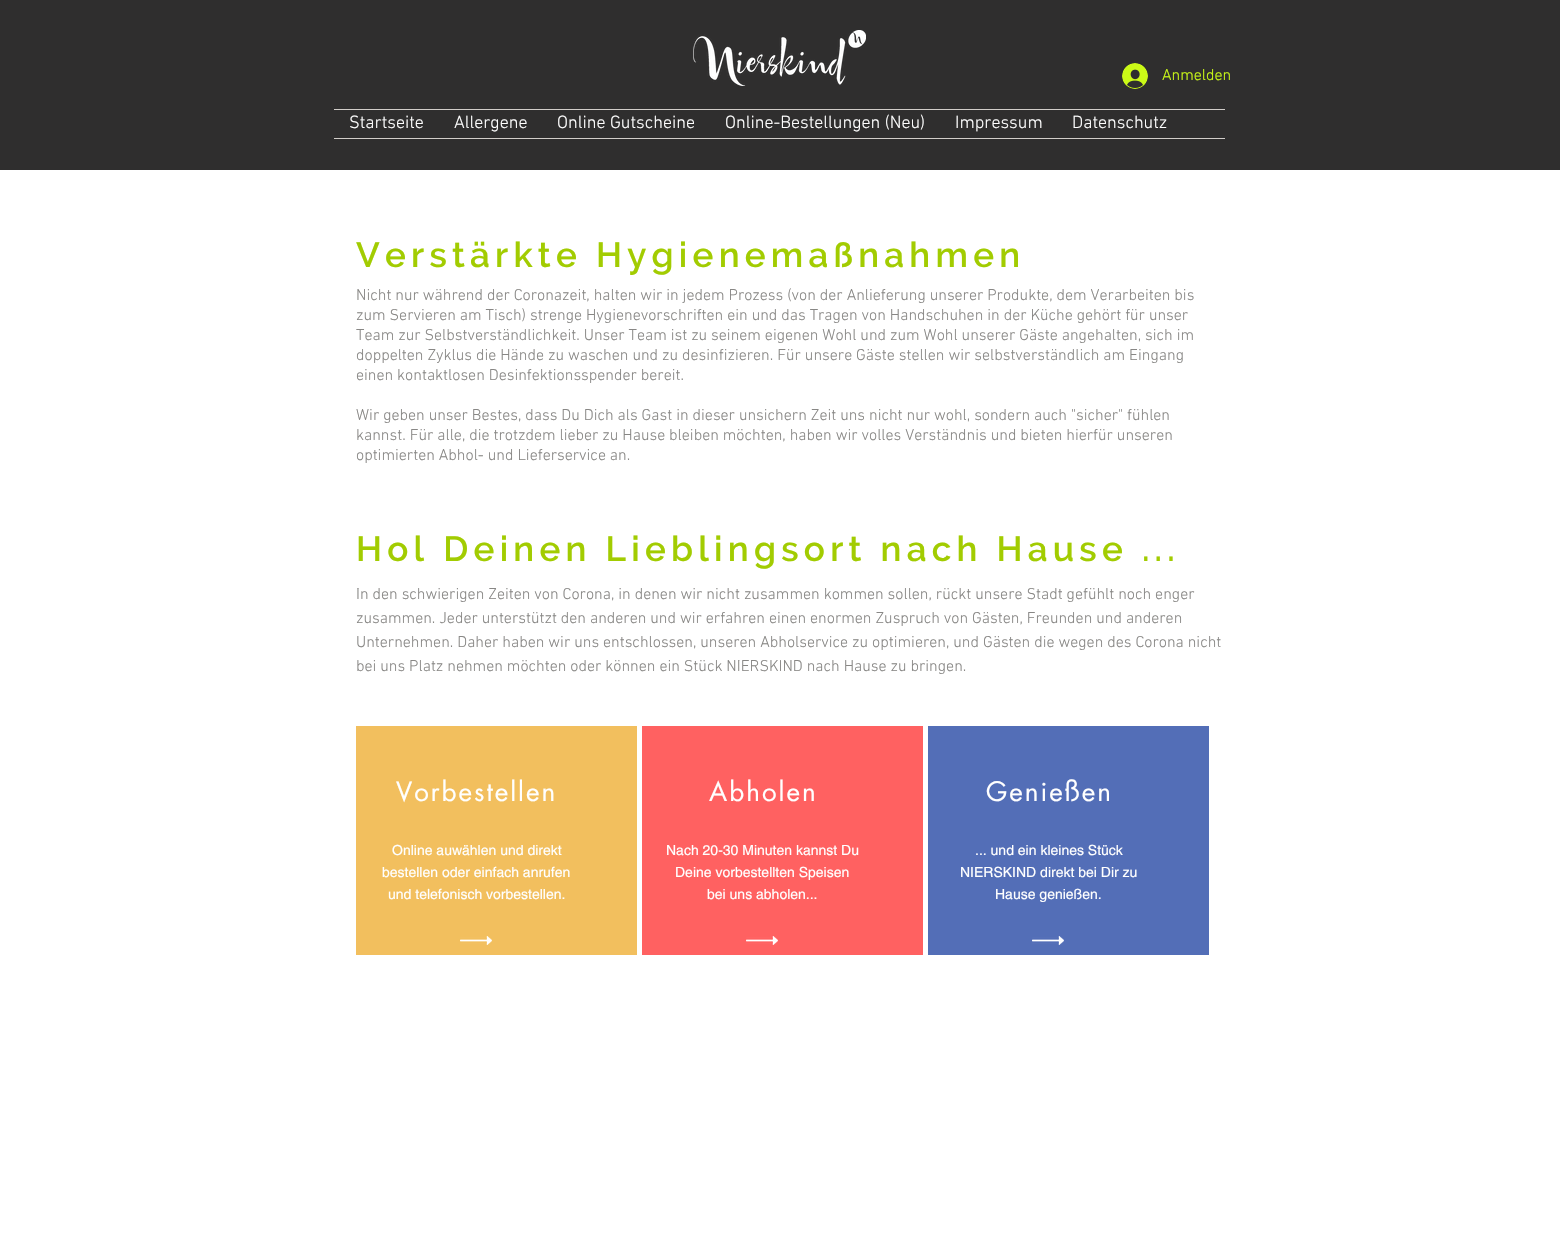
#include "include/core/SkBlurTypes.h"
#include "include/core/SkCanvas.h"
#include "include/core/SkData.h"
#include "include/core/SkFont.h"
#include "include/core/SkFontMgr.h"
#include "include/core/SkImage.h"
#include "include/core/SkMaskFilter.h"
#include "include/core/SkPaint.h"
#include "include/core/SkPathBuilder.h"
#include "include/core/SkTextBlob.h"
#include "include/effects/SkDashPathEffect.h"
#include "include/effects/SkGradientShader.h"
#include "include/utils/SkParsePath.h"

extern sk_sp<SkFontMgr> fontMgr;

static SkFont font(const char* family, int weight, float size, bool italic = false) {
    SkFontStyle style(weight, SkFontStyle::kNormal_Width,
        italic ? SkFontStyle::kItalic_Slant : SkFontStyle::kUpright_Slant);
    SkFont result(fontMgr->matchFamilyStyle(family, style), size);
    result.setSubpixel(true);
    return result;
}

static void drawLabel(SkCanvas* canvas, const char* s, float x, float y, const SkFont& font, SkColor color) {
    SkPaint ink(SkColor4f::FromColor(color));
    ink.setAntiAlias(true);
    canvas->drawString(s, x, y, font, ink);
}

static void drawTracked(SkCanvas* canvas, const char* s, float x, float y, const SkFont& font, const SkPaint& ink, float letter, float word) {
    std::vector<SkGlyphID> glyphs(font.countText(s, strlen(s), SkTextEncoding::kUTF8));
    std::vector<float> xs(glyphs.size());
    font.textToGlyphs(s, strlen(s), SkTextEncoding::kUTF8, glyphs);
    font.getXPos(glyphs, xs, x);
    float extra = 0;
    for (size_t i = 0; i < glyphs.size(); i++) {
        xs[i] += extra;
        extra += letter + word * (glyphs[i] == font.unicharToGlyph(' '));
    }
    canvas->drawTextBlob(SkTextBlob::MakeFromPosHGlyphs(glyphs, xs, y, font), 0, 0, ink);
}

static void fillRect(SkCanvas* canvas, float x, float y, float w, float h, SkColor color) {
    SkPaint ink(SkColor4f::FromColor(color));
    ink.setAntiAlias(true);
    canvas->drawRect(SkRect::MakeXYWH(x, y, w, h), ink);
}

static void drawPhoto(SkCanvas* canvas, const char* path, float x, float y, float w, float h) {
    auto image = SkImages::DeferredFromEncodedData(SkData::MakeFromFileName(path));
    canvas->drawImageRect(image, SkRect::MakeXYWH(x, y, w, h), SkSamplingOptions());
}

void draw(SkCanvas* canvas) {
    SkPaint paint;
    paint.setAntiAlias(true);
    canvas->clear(0xFFFFFFFF);
    fillRect(canvas, 0, 0, 1560, 170, 0xFF2F2E2E);
    drawPhoto(canvas, "assets/img1.png", 693, 30, 173, 56);
    drawPhoto(canvas, "assets/img2.png", 1122, 63, 26, 26);
    SkFont font1 = font("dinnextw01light", 300, 16);
    drawLabel(canvas, "Anmelden", 1162, 80, font1, 0xFFCBFA17);
    fillRect(canvas, 334, 109, 891, 1, 0xFFD1CDC9);
    fillRect(canvas, 334, 138, 891, 1, 0xFFD1CDC9);
    SkFont font2 = font("dinnextw01light", 300, 18);
    drawLabel(canvas, "Startseite", 349, 128, font2, 0xFFFFFFFF);
    drawLabel(canvas, "Allergene", 454, 128, font2, 0xFFFFFFFF);
    drawLabel(canvas, "Online Gutscheine", 557, 128, font2, 0xFFFFFFFF);
    drawLabel(canvas, "Online-Bestellungen (Neu)", 725, 128, font2, 0xFFFFFFFF);
    drawLabel(canvas, "Impressum", 955, 128, font2, 0xFFFFFFFF);
    drawLabel(canvas, "Datenschutz", 1072, 128, font2, 0xFFFFFFFF);
    SkFont font3 = font("Raleway", 600, 35);
    paint.setColor(0xFFA2CC01);
    drawTracked(canvas, "Verstärkte Hygienemaßnahmen", 356, 267, font3, paint, 5.25f, 0);
    drawLabel(canvas, "Nicht nur während der Coronazeit, halten wir in jedem Prozess (von der Anlieferung unserer Produkte, dem Verarbeiten bis", 356, 300, font1, 0xFF888785);
    drawLabel(canvas, "zum Servieren am Tisch) strenge Hygienevorschriften ein und das Tragen von Handschuhen in der Küche gehört für unser", 356, 320, font1, 0xFF888785);
    drawLabel(canvas, "Team zur Selbstverständlichkeit. Unser Team ist zu seinem eigenen Wohl und zum Wohl unserer Gäste angehalten, sich im", 356, 340, font1, 0xFF888785);
    drawLabel(canvas, "doppelten Zyklus die Hände zu waschen und zu desinfizieren. Für unsere Gäste stellen wir selbstverständlich am Eingang", 356, 360, font1, 0xFF888785);
    drawLabel(canvas, "einen kontaktlosen Desinfektionsspender bereit.", 356, 380, font1, 0xFF888785);
    drawLabel(canvas, "Wir geben unser Bestes, dass Du Dich als Gast in dieser unsichern Zeit uns nicht nur wohl, sondern auch \"sicher\" fühlen", 356, 420, font1, 0xFF888785);
    drawLabel(canvas, "kannst. Für alle, die trotzdem lieber zu Hause bleiben möchten, haben wir volles Verständnis und bieten hierfür unseren", 356, 440, font1, 0xFF888785);
    drawLabel(canvas, "optimierten Abhol- und Lieferservice an.", 356, 460, font1, 0xFF888785);
    drawTracked(canvas, "Hol Deinen Lieblingsort nach Hause ...", 356, 561, font3, paint, 5.25f, 0);
    drawLabel(canvas, "In den schwierigen Zeiten von Corona, in denen wir nicht zusammen kommen sollen, rückt unsere Stadt gefühlt noch enger", 356, 599, font1, 0xFF888785);
    drawLabel(canvas, "zusammen. Jeder unterstützt den anderen und wir erfahren einen enormen Zuspruch von Gästen, Freunden und anderen", 356, 623, font1, 0xFF888785);
    drawLabel(canvas, "Unternehmen. Daher haben wir uns entschlossen, unseren Abholservice zu optimieren, und Gästen die wegen des Corona nicht", 356, 647, font1, 0xFF888785);
    drawLabel(canvas, "bei uns Platz nehmen möchten oder können ein Stück NIERSKIND nach Hause zu bringen.", 356, 671, font1, 0xFF888785);
    fillRect(canvas, 356, 726, 281, 229, 0xFFF2BF5E);
    SkFont font4 = font("futura", 400, 26);
    paint.setColor(0xFFFFFFFF);
    drawTracked(canvas, "Vorbestellen", 396, 801, font4, paint, 2, 0);
    SkFont font5 = font("helvetica", 400, 14);
    drawLabel(canvas, "Online auwählen und direkt", 392, 855, font5, 0xFFFFFFFF);
    drawLabel(canvas, "bestellen oder einfach anrufen", 382, 877, font5, 0xFFFFFFFF);
    drawLabel(canvas, "und telefonisch vorbestellen.", 388, 899, font5, 0xFFFFFFFF);
    drawPhoto(canvas, "assets/img3.png", 460, 936, 32, 9);
    fillRect(canvas, 642, 726, 281, 229, 0xFFFF6161);
    drawTracked(canvas, "Abholen", 709, 801, font4, paint, 2, 0);
    drawLabel(canvas, "Nach 20-30 Minuten kannst Du", 666, 855, font5, 0xFFFFFFFF);
    drawLabel(canvas, "Deine vorbestellten Speisen", 675, 877, font5, 0xFFFFFFFF);
    drawLabel(canvas, "bei uns abholen...", 707, 899, font5, 0xFFFFFFFF);
    drawPhoto(canvas, "assets/img4.png", 746, 936, 32, 9);
    fillRect(canvas, 928, 726, 281, 229, 0xFF536EB7);
    drawTracked(canvas, "Genießen", 986, 801, font4, paint, 2, 0);
    drawLabel(canvas, "... und ein kleines Stück", 975, 855, font5, 0xFFFFFFFF);
    drawLabel(canvas, "NIERSKIND direkt bei Dir zu", 960, 877, font5, 0xFFFFFFFF);
    drawLabel(canvas, "Hause genießen.", 995, 899, font5, 0xFFFFFFFF);
    drawPhoto(canvas, "assets/img5.png", 1032, 936, 32, 9);
}
